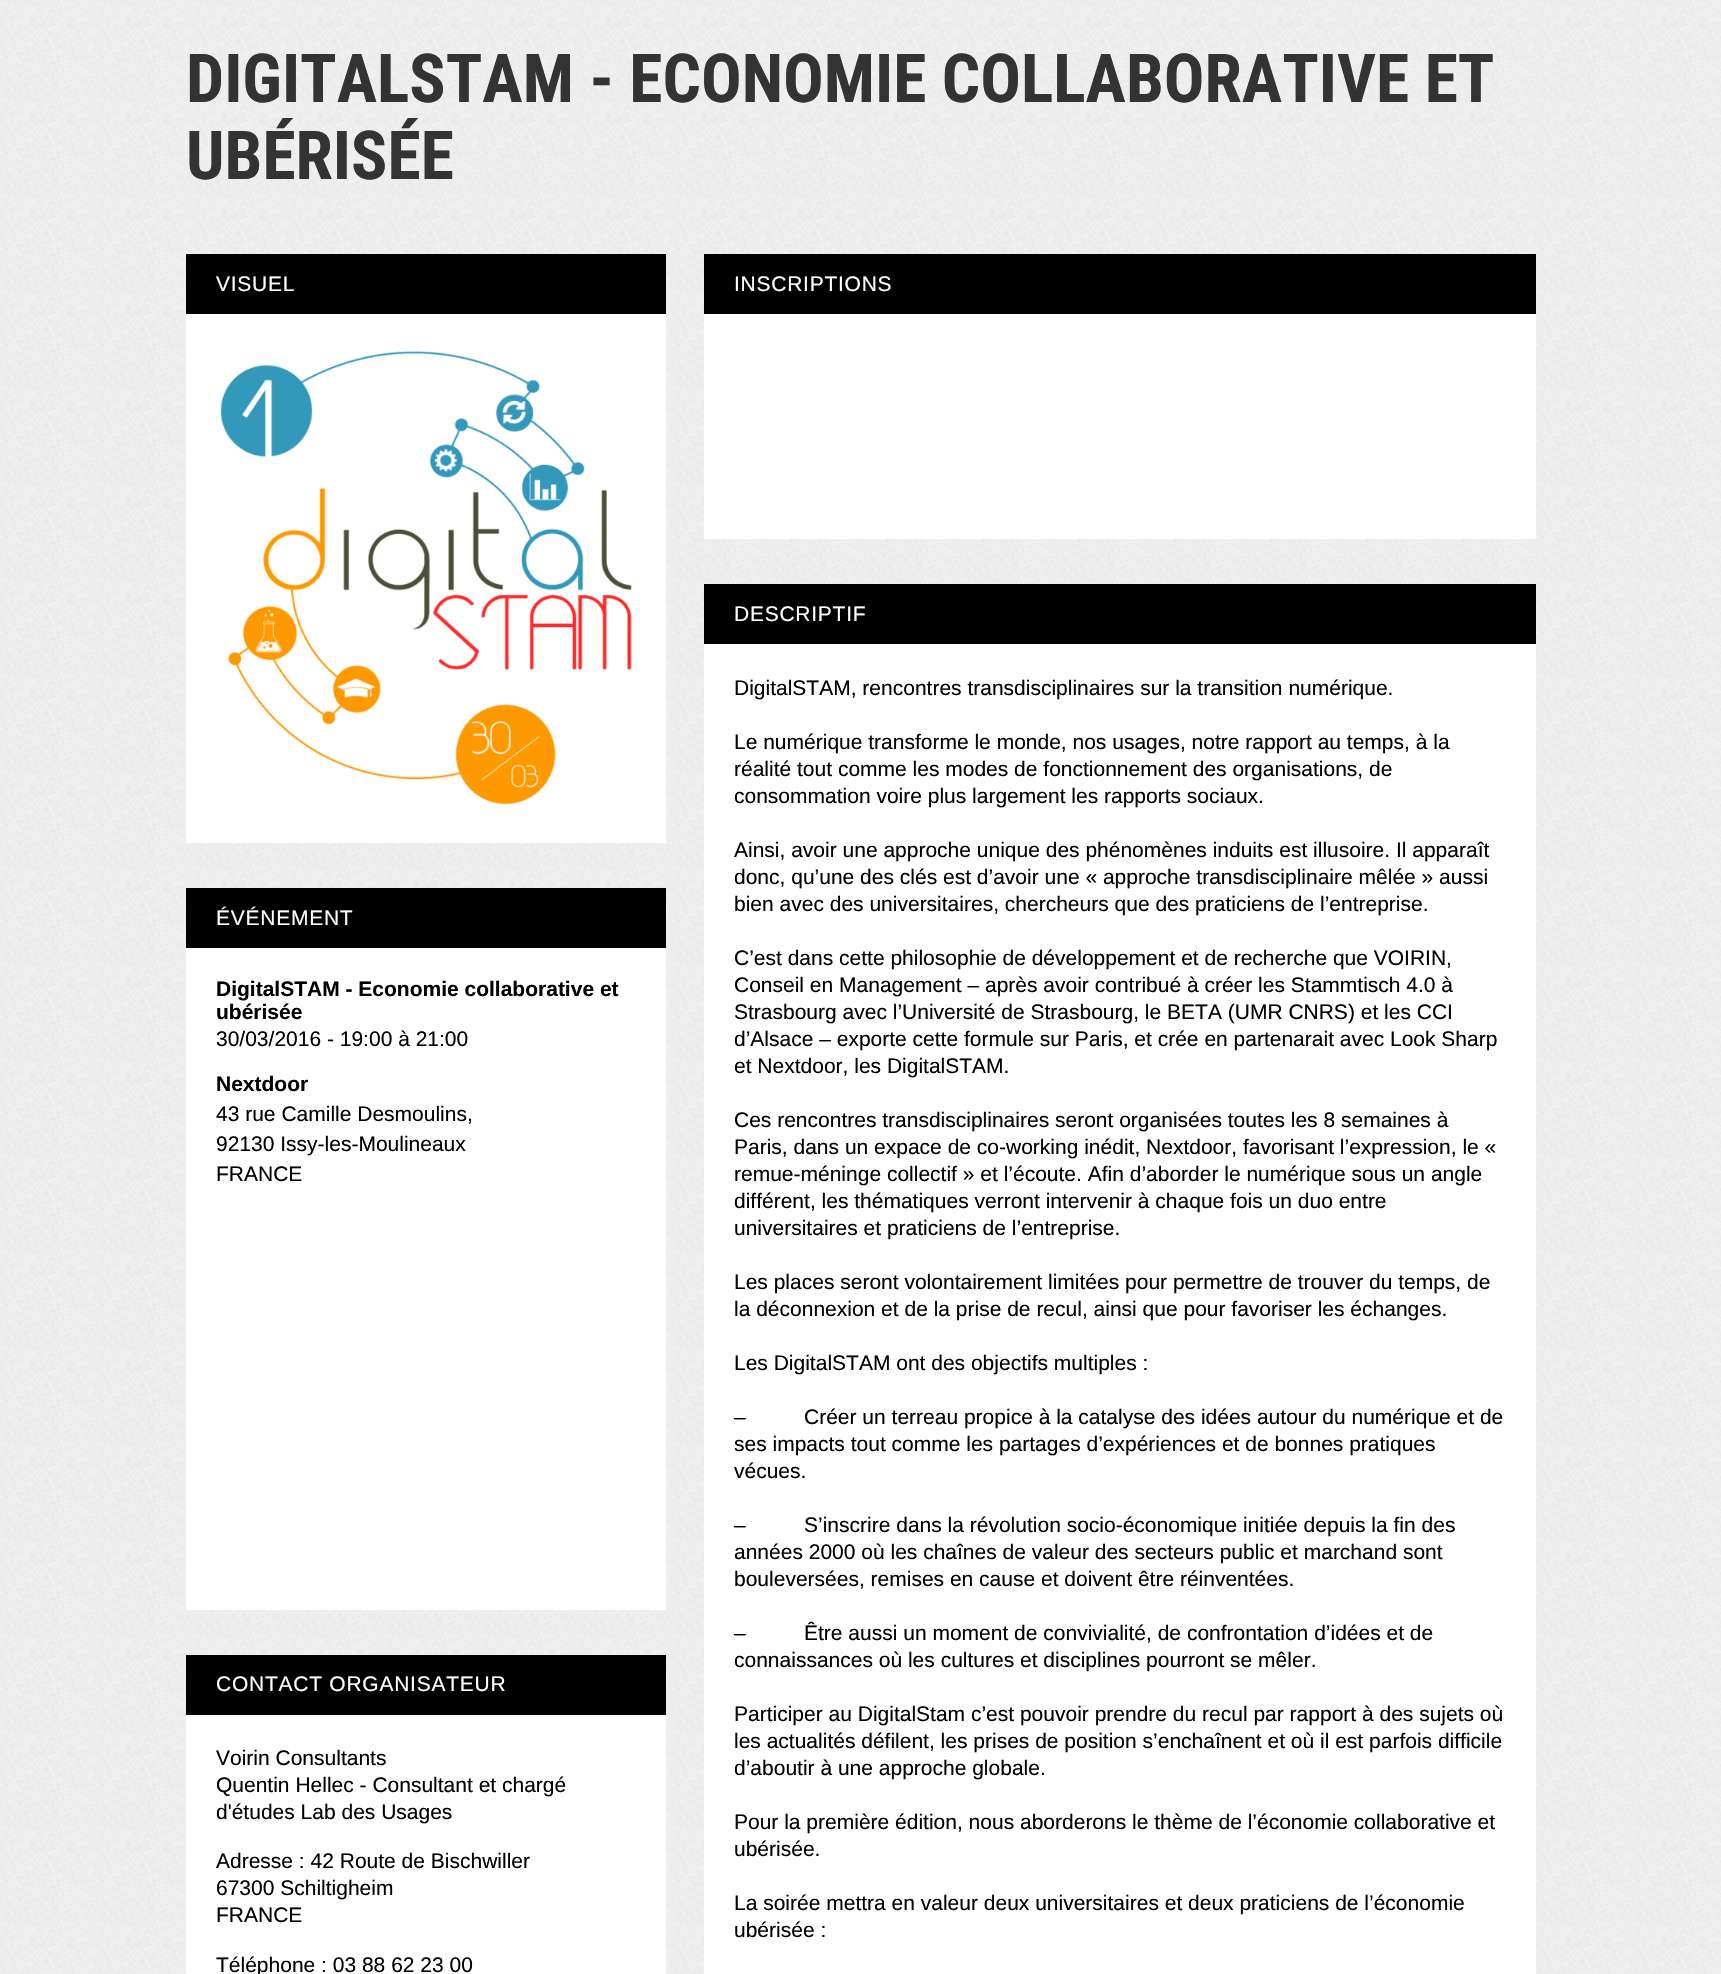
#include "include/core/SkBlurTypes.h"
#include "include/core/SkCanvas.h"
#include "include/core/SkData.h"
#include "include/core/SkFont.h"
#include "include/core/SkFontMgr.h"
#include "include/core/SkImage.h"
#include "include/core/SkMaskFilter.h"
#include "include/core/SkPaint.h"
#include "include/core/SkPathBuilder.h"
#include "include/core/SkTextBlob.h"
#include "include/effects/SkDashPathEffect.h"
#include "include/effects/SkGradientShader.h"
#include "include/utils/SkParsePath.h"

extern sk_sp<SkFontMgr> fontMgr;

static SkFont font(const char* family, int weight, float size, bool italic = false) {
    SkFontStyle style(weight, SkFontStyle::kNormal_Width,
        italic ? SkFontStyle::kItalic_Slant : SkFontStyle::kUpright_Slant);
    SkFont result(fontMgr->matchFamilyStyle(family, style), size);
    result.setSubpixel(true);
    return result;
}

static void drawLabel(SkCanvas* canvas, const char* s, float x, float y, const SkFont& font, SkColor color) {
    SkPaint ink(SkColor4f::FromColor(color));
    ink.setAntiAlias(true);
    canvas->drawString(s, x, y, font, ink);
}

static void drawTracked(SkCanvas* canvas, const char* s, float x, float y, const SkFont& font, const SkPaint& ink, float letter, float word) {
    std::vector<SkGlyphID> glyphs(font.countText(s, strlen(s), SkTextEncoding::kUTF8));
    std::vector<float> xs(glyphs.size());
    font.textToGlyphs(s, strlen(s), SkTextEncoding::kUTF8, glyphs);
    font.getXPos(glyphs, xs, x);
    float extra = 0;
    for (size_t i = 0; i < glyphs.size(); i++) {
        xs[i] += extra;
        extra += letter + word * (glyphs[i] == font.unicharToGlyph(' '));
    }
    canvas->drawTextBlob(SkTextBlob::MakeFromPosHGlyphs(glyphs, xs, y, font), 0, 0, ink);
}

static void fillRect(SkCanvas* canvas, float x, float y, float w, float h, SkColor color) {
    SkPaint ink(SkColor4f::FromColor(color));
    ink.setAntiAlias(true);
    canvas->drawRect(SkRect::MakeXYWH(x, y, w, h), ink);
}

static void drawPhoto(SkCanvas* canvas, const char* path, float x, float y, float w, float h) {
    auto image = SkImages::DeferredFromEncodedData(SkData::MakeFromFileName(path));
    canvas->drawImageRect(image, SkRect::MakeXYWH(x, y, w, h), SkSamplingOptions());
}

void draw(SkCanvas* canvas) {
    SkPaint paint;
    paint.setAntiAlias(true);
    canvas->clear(0xFFFFFFFF);
    drawPhoto(canvas, "assets/img1.png", 0, 0, 1721, 1974);
    SkFont font1 = font("Roboto Condensed", 700, 67.5f);
    drawLabel(canvas, "DIGITALSTAM - ECONOMIE COLLABORATIVE ET", 186, 102, font1, 0xFF333333);
    drawLabel(canvas, "UBÉRISÉE", 186, 179, font1, 0xFF333333);
    fillRect(canvas, 186, 254, 480, 60, 0xFF000000);
    SkFont font2 = font("Liberation Sans", 400, 21);
    paint.setColor(0xFFFFFFFF);
    drawTracked(canvas, "VISUEL", 216, 291, font2, paint, 0.75f, 0);
    fillRect(canvas, 186, 314, 480, 529, 0xFFFFFFFF);
    drawPhoto(canvas, "assets/img2.png", 220, 351, 412, 454);
    fillRect(canvas, 186, 888, 480, 60, 0xFF000000);
    drawTracked(canvas, "ÉVÉNEMENT", 216, 925, font2, paint, 0.75f, 0);
    fillRect(canvas, 186, 948, 480, 662, 0xFFFFFFFF);
    SkFont font3 = font("Liberation Sans", 700, 21);
    drawLabel(canvas, "DigitalSTAM - Economie collaborative et", 216, 996, font3, 0xFF000000);
    drawLabel(canvas, "ubérisée", 216, 1019, font3, 0xFF000000);
    drawLabel(canvas, "30/03/2016 - 19:00 à 21:00", 216, 1046, font2, 0xFF000000);
    drawLabel(canvas, "Nextdoor", 216, 1091, font3, 0xFF000000);
    drawLabel(canvas, "43 rue Camille Desmoulins,", 216, 1121, font2, 0xFF000000);
    drawLabel(canvas, "92130 Issy-les-Moulineaux", 216, 1151, font2, 0xFF000000);
    drawLabel(canvas, "FRANCE", 216, 1181, font2, 0xFF000000);
    fillRect(canvas, 186, 1655, 480, 60, 0xFF000000);
    drawTracked(canvas, "CONTACT ORGANISATEUR", 216, 1691, font2, paint, 0.75f, 0);
    fillRect(canvas, 186, 1715, 480, 259, 0xFFFFFFFF);
    drawLabel(canvas, "Voirin Consultants", 216, 1765, font2, 0xFF000000);
    drawLabel(canvas, "Quentin Hellec - Consultant et chargé", 216, 1792, font2, 0xFF000000);
    drawLabel(canvas, "d'études Lab des Usages", 216, 1819, font2, 0xFF000000);
    drawLabel(canvas, "Adresse : 42 Route de Bischwiller", 216, 1868, font2, 0xFF000000);
    drawLabel(canvas, "67300 Schiltigheim", 216, 1895, font2, 0xFF000000);
    drawLabel(canvas, "FRANCE", 216, 1922, font2, 0xFF000000);
    drawLabel(canvas, "Téléphone : 03 88 62 23 00", 216, 1972, font2, 0xFF000000);
    fillRect(canvas, 704, 254, 832, 60, 0xFF000000);
    drawTracked(canvas, "INSCRIPTIONS", 734, 291, font2, paint, 0.75f, 0);
    fillRect(canvas, 704, 314, 832, 225, 0xFFFFFFFF);
    fillRect(canvas, 704, 584, 832, 60, 0xFF000000);
    drawTracked(canvas, "DESCRIPTIF", 734, 621, font2, paint, 0.75f, 0);
    fillRect(canvas, 704, 644, 832, 1330, 0xFFFFFFFF);
    drawLabel(canvas, "DigitalSTAM, rencontres transdisciplinaires sur la transition numérique.", 734, 695, font2, 0xFF000000);
    drawLabel(canvas, "Le numérique transforme le monde, nos usages, notre rapport au temps, à la", 734, 749, font2, 0xFF000000);
    drawLabel(canvas, "réalité tout comme les modes de fonctionnement des organisations, de", 734, 776, font2, 0xFF000000);
    drawLabel(canvas, "consommation voire plus largement les rapports sociaux.", 734, 803, font2, 0xFF000000);
    drawLabel(canvas, "Ainsi, avoir une approche unique des phénomènes induits est illusoire. Il apparaît", 734, 857, font2, 0xFF000000);
    drawLabel(canvas, "donc, qu’une des clés est d’avoir une « approche transdisciplinaire mêlée » aussi", 734, 884, font2, 0xFF000000);
    drawLabel(canvas, "bien avec des universitaires, chercheurs que des praticiens de l’entreprise.", 734, 911, font2, 0xFF000000);
    drawLabel(canvas, "C’est dans cette philosophie de développement et de recherche que VOIRIN,", 734, 965, font2, 0xFF000000);
    drawLabel(canvas, "Conseil en Management – après avoir contribué à créer les Stammtisch 4.0 à", 734, 992, font2, 0xFF000000);
    drawLabel(canvas, "Strasbourg avec l’Université de Strasbourg, le BETA (UMR CNRS) et les CCI", 734, 1019, font2, 0xFF000000);
    drawLabel(canvas, "d’Alsace – exporte cette formule sur Paris, et crée en partenarait avec Look Sharp", 734, 1046, font2, 0xFF000000);
    drawLabel(canvas, "et Nextdoor, les DigitalSTAM.", 734, 1073, font2, 0xFF000000);
    drawLabel(canvas, "Ces rencontres transdisciplinaires seront organisées toutes les 8 semaines à", 734, 1127, font2, 0xFF000000);
    drawLabel(canvas, "Paris, dans un expace de co-working inédit, Nextdoor, favorisant l’expression, le «", 734, 1154, font2, 0xFF000000);
    drawLabel(canvas, "remue-méninge collectif » et l’écoute. Afin d’aborder le numérique sous un angle", 734, 1181, font2, 0xFF000000);
    drawLabel(canvas, "différent, les thématiques verront intervenir à chaque fois un duo entre", 734, 1208, font2, 0xFF000000);
    drawLabel(canvas, "universitaires et praticiens de l’entreprise.", 734, 1235, font2, 0xFF000000);
    drawLabel(canvas, "Les places seront volontairement limitées pour permettre de trouver du temps, de", 734, 1289, font2, 0xFF000000);
    drawLabel(canvas, "la déconnexion et de la prise de recul, ainsi que pour favoriser les échanges.", 734, 1316, font2, 0xFF000000);
    drawLabel(canvas, "Les DigitalSTAM ont des objectifs multiples :", 734, 1370, font2, 0xFF000000);
    drawLabel(canvas, "–          Créer un terreau propice à la catalyse des idées autour du numérique et de", 734, 1424, font2, 0xFF000000);
    drawLabel(canvas, "ses impacts tout comme les partages d’expériences et de bonnes pratiques", 734, 1451, font2, 0xFF000000);
    drawLabel(canvas, "vécues.", 734, 1478, font2, 0xFF000000);
    drawLabel(canvas, "–          S’inscrire dans la révolution socio-économique initiée depuis la fin des", 734, 1532, font2, 0xFF000000);
    drawLabel(canvas, "années 2000 où les chaînes de valeur des secteurs public et marchand sont", 734, 1559, font2, 0xFF000000);
    drawLabel(canvas, "bouleversées, remises en cause et doivent être réinventées.", 734, 1586, font2, 0xFF000000);
    drawLabel(canvas, "–          Être aussi un moment de convivialité, de confrontation d’idées et de", 734, 1640, font2, 0xFF000000);
    drawLabel(canvas, "connaissances où les cultures et disciplines pourront se mêler.", 734, 1667, font2, 0xFF000000);
    drawLabel(canvas, "Participer au DigitalStam c’est pouvoir prendre du recul par rapport à des sujets où", 734, 1721, font2, 0xFF000000);
    drawLabel(canvas, "les actualités défilent, les prises de position s’enchaînent et où il est parfois difficile", 734, 1748, font2, 0xFF000000);
    drawLabel(canvas, "d’aboutir à une approche globale.", 734, 1775, font2, 0xFF000000);
    drawLabel(canvas, "Pour la première édition, nous aborderons le thème de l’économie collaborative et", 734, 1829, font2, 0xFF000000);
    drawLabel(canvas, "ubérisée.", 734, 1856, font2, 0xFF000000);
    drawLabel(canvas, "La soirée mettra en valeur deux universitaires et deux praticiens de l’économie", 734, 1910, font2, 0xFF000000);
    drawLabel(canvas, "ubérisée :", 734, 1937, font2, 0xFF000000);
}
